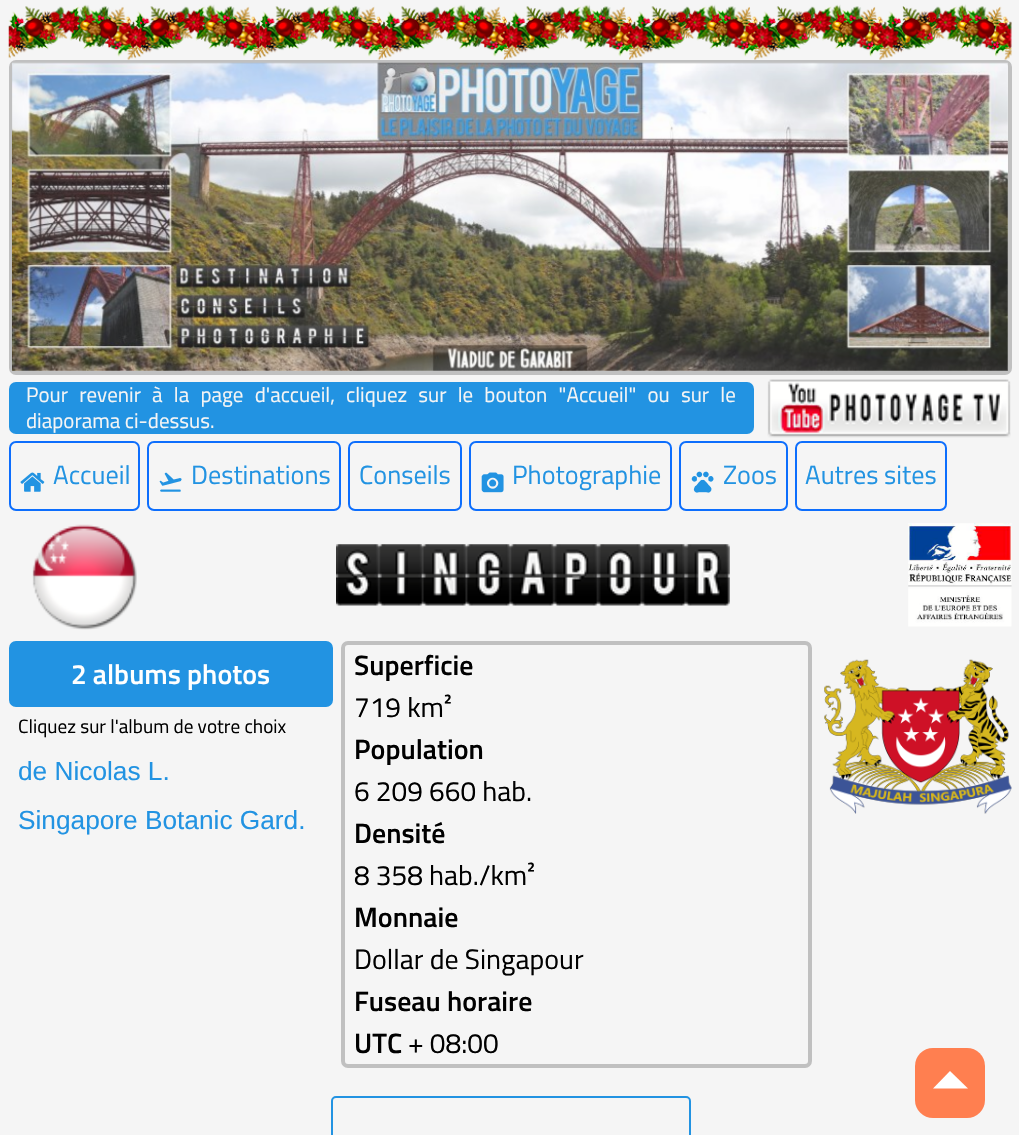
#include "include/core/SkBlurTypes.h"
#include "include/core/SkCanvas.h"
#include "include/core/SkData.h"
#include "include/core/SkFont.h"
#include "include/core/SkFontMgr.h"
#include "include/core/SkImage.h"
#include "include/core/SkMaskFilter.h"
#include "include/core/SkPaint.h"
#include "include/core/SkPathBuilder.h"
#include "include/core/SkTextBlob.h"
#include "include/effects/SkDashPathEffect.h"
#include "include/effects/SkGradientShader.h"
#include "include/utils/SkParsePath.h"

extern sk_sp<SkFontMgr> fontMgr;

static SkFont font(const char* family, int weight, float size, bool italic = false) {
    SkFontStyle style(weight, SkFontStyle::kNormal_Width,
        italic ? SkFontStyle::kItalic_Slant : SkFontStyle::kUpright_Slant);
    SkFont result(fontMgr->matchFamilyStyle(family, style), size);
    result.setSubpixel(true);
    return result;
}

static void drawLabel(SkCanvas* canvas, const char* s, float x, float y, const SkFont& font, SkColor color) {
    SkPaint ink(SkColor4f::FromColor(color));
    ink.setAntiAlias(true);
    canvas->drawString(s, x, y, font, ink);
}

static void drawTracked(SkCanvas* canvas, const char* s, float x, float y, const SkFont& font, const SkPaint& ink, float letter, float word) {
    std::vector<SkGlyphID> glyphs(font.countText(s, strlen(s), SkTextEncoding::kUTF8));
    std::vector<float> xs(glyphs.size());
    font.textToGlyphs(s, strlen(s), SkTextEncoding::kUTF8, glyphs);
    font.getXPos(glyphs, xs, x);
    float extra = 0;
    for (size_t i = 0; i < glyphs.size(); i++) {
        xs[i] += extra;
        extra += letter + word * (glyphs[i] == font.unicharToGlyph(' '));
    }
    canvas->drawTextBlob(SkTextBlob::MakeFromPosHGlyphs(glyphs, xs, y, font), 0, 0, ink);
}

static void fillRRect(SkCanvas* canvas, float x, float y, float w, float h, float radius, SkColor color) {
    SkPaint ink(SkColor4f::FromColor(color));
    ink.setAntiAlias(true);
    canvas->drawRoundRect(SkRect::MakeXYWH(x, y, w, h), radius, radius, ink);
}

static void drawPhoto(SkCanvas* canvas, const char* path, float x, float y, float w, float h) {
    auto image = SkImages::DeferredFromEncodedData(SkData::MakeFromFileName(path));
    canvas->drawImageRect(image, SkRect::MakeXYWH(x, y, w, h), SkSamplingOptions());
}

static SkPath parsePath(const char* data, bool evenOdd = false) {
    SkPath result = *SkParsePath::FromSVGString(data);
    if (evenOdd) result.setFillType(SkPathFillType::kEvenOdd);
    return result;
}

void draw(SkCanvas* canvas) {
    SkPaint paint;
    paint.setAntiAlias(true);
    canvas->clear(0xFFF5F5F5);
    drawPhoto(canvas, "assets/img1.png", 8, 4, 1004, 56);
    paint.setStroke(true);
    paint.setStrokeWidth(4);
    paint.setColor(0xFFC0C0C0);
    canvas->drawRoundRect(SkRect::MakeXYWH(11, 62, 999, 311), 5, 5, paint);
    drawPhoto(canvas, "assets/img2.png", 12, 62, 996, 309);
    fillRRect(canvas, 9, 382, 745, 52, 7, 0xFF2293E2);
    SkFont font1 = font("Titillium Web", 400, 21);
    paint.setStroke(false);
    paint.setColor(0xFFF5F5F5);
    drawTracked(canvas, "Pour revenir à la page d'accueil, cliquez sur le bouton \"Accueil\" ou sur le", 26, 402, font1, paint, 0, 6.6f);
    drawLabel(canvas, "diaporama ci-dessus.", 26, 428, font1, 0xFFF5F5F5);
    drawPhoto(canvas, "assets/img3.png", 767, 379, 244, 59);
    paint.setStroke(true);
    paint.setStrokeWidth(2);
    paint.setColor(0xFF0D6EFD);
    canvas->drawRoundRect(SkRect::MakeXYWH(10, 442, 129, 68), 6, 6, paint);
    drawPhoto(canvas, "assets/img4.png", 20, 472, 25, 20);
    SkFont font2 = font("Titillium Web", 400, 26.25f);
    drawLabel(canvas, "Accueil", 53, 484, font2, 0xFF2293E2);
    canvas->drawRoundRect(SkRect::MakeXYWH(148, 442, 192, 68), 6, 6, paint);
    drawPhoto(canvas, "assets/img5.png", 159, 472, 23, 20);
    drawLabel(canvas, "Destinations", 191, 484, font2, 0xFF2293E2);
    canvas->drawRoundRect(SkRect::MakeXYWH(349, 442, 112, 68), 6, 6, paint);
    drawLabel(canvas, "Conseils", 359, 484, font2, 0xFF2293E2);
    canvas->drawRoundRect(SkRect::MakeXYWH(470, 442, 201, 68), 6, 6, paint);
    drawPhoto(canvas, "assets/img6.png", 481, 472, 23, 21);
    drawLabel(canvas, "Photographie", 512, 484, font2, 0xFF2293E2);
    canvas->drawRoundRect(SkRect::MakeXYWH(680, 442, 107, 68), 6, 6, paint);
    drawPhoto(canvas, "assets/img7.png", 691, 471, 23, 22);
    drawLabel(canvas, "Zoos", 723, 484, font2, 0xFF2293E2);
    canvas->drawRoundRect(SkRect::MakeXYWH(796, 442, 150, 68), 6, 6, paint);
    drawLabel(canvas, "Autres sites", 805, 484, font2, 0xFF2293E2);
    drawPhoto(canvas, "assets/img8.png", 32, 524, 105, 106);
    drawPhoto(canvas, "assets/img9.png", 336, 544, 394, 62);
    drawPhoto(canvas, "assets/img10.png", 908, 523, 104, 104);
    paint.setStroke(false);
    paint.setColor(0xFF2293E2);
    canvas->drawRoundRect(SkRect::MakeXYWH(11, 643, 320, 62), 5, 5, paint);
    paint.setStroke(true);
    paint.setStrokeWidth(4);
    canvas->drawRoundRect(SkRect::MakeXYWH(11, 643, 320, 62), 5, 5, paint);
    SkFont font3 = font("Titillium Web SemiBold", 600, 28);
    drawLabel(canvas, "2 albums photos", 71, 684, font3, 0xFFFFFFFF);
    SkFont font4 = font("Titillium Web", 400, 19.25f);
    drawLabel(canvas, "Cliquez sur l'album de votre choix", 18, 733, font4, 0xFF000000);
    SkFont font5 = font("Liberation Sans", 400, 26.25f);
    drawLabel(canvas, "de Nicolas L.", 18, 780, font5, 0xFF2293E2);
    drawLabel(canvas, "Singapore Botanic Gard.", 18, 829, font5, 0xFF2293E2);
    paint.setColor(0xFFC0C0C0);
    canvas->drawRoundRect(SkRect::MakeXYWH(343, 643, 467, 423), 5, 5, paint);
    drawLabel(canvas, "Superficie", 354, 675, font3, 0xFF000000);
    SkFont font6 = font("Titillium Web", 400, 28);
    drawLabel(canvas, "719 km²", 354, 717, font6, 0xFF000000);
    drawLabel(canvas, "Population", 354, 759, font3, 0xFF000000);
    drawLabel(canvas, "6 209 660 hab.", 354, 801, font6, 0xFF000000);
    drawLabel(canvas, "Densité", 354, 843, font3, 0xFF000000);
    drawLabel(canvas, "8 358 hab./km²", 354, 885, font6, 0xFF000000);
    drawLabel(canvas, "Monnaie", 354, 927, font3, 0xFF000000);
    drawLabel(canvas, "Dollar de Singapour", 354, 969, font6, 0xFF000000);
    drawLabel(canvas, "Fuseau horaire", 354, 1011, font3, 0xFF000000);
    drawLabel(canvas, "UTC", 354, 1053, font3, 0xFF000000);
    drawLabel(canvas, "+ 08:00", 408, 1053, font6, 0xFF000000);
    drawPhoto(canvas, "assets/img11.png", 824, 659, 188, 155);
    paint.setStrokeWidth(2);
    paint.setColor(0xFF2293E2);
    canvas->drawRoundRect(SkRect::MakeXYWH(332, 1097, 358, 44), 4, 4, paint);
    fillRRect(canvas, 915, 1048, 70, 70, 18, 0xFFFF7F50);
    paint.setStroke(false);
    paint.setColor(0xFFFFFFFF);
    canvas->drawPath(parsePath("M968 1088.5H933L950 1071Z"), paint);
}
